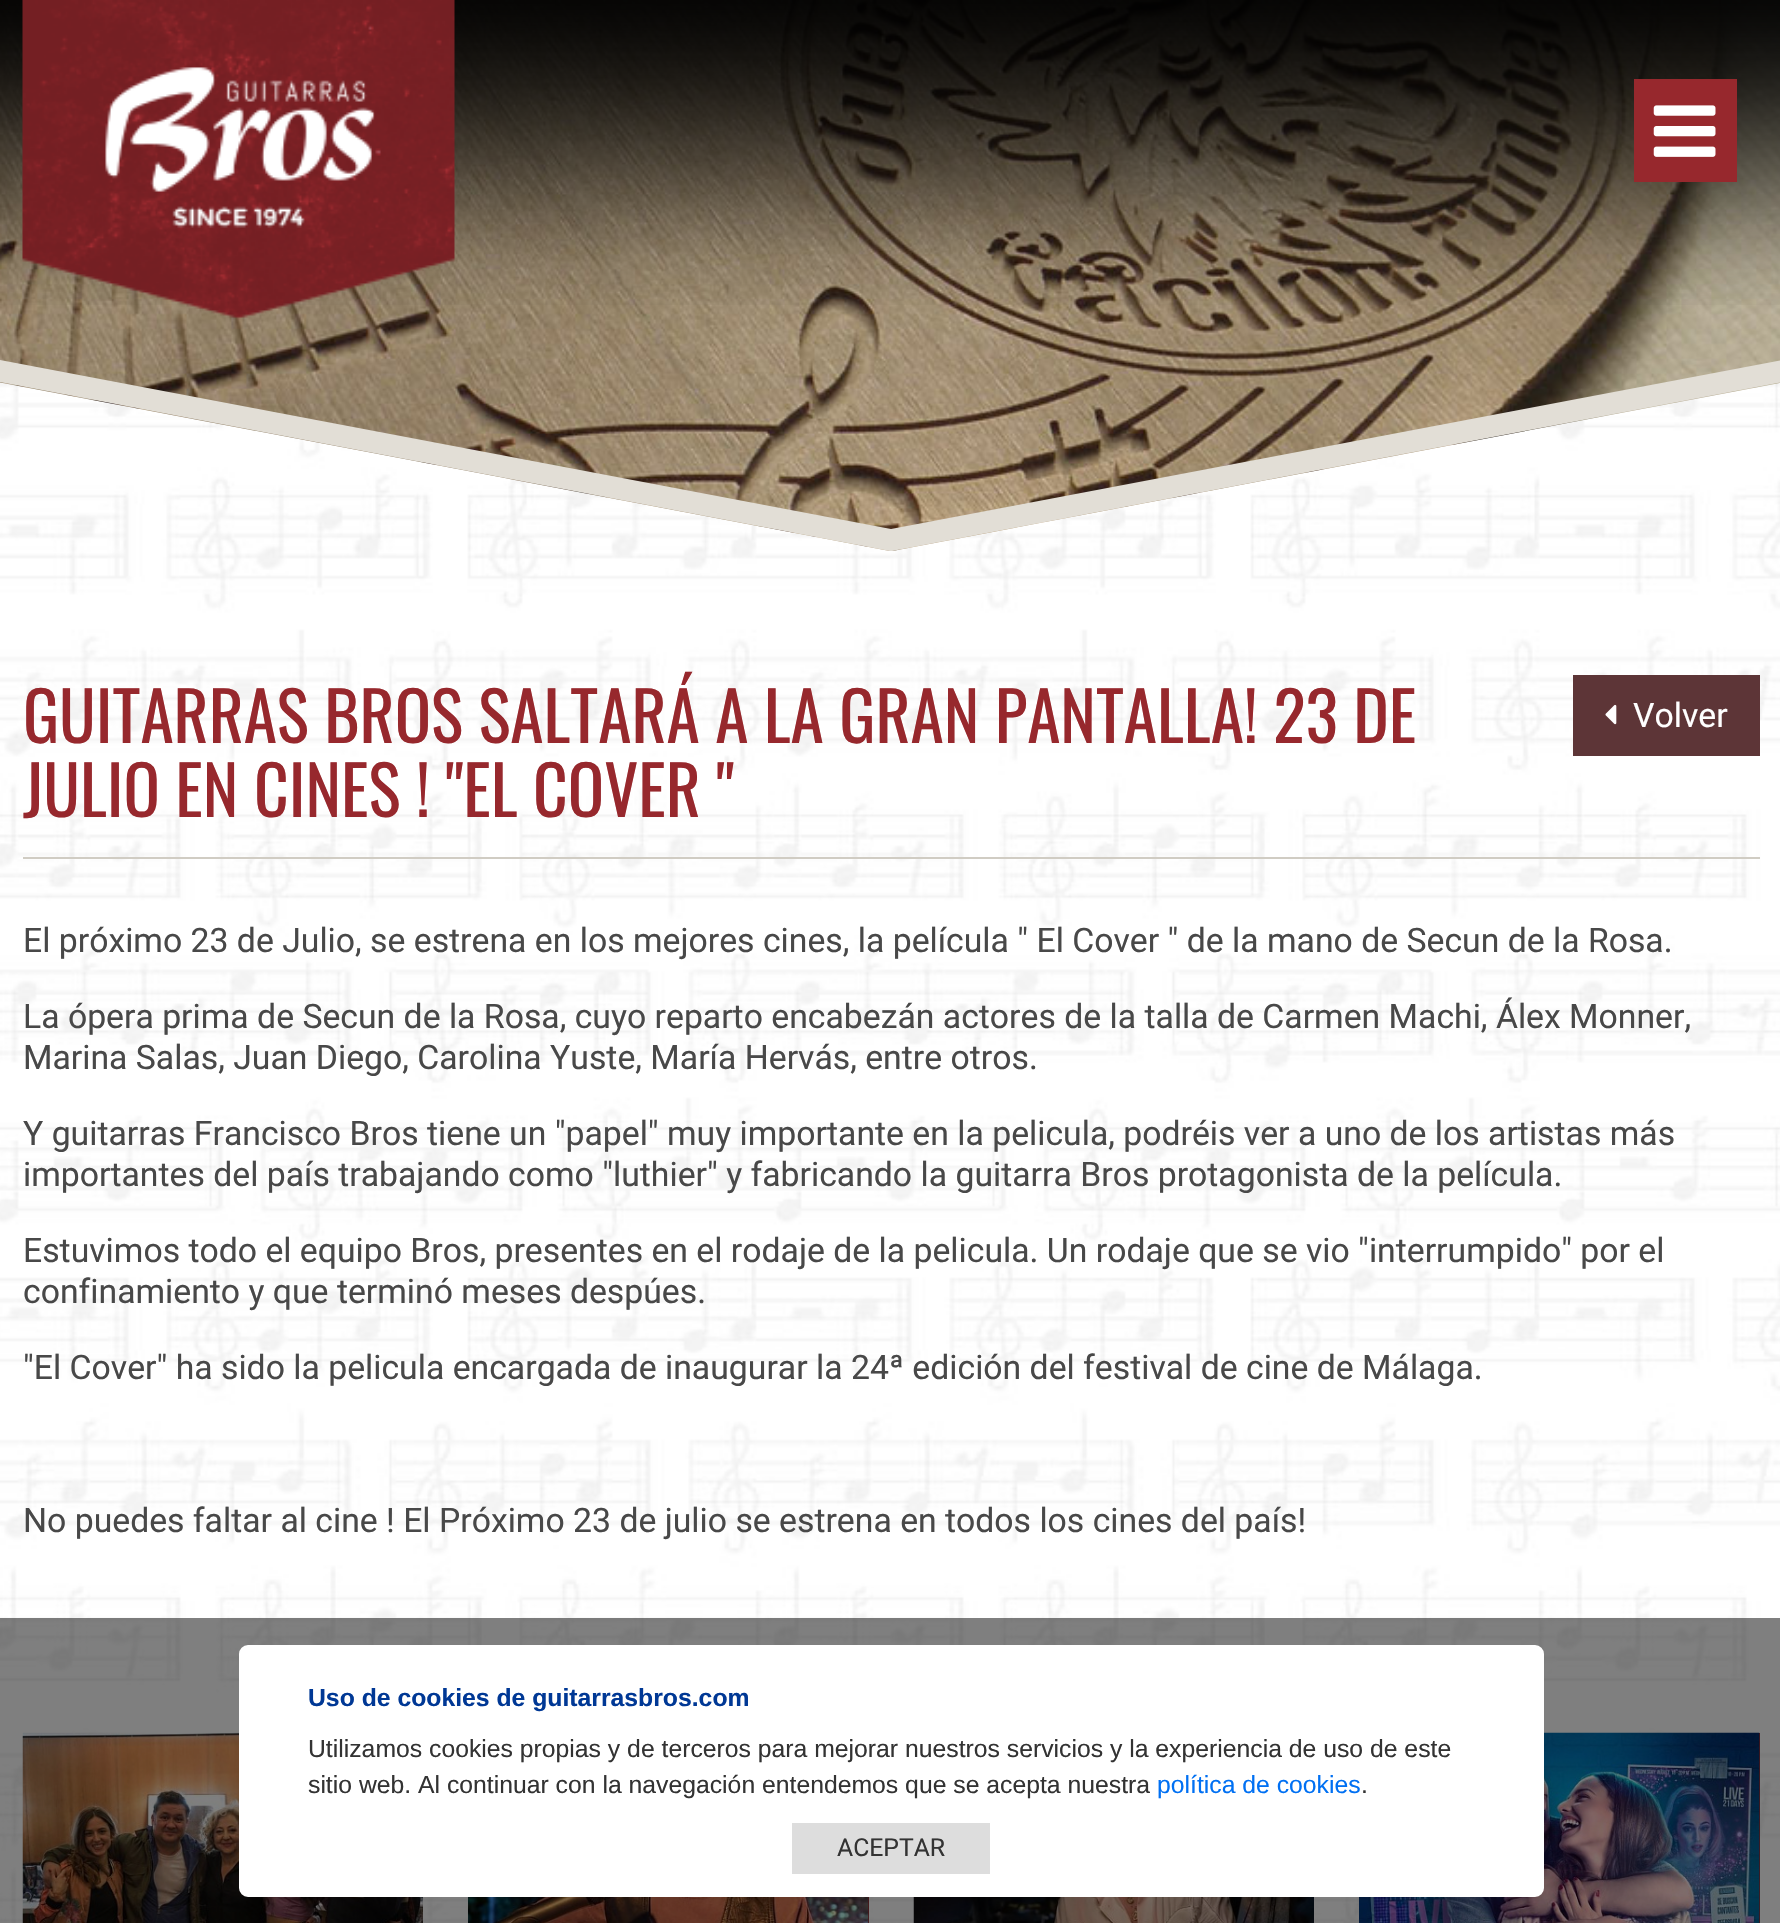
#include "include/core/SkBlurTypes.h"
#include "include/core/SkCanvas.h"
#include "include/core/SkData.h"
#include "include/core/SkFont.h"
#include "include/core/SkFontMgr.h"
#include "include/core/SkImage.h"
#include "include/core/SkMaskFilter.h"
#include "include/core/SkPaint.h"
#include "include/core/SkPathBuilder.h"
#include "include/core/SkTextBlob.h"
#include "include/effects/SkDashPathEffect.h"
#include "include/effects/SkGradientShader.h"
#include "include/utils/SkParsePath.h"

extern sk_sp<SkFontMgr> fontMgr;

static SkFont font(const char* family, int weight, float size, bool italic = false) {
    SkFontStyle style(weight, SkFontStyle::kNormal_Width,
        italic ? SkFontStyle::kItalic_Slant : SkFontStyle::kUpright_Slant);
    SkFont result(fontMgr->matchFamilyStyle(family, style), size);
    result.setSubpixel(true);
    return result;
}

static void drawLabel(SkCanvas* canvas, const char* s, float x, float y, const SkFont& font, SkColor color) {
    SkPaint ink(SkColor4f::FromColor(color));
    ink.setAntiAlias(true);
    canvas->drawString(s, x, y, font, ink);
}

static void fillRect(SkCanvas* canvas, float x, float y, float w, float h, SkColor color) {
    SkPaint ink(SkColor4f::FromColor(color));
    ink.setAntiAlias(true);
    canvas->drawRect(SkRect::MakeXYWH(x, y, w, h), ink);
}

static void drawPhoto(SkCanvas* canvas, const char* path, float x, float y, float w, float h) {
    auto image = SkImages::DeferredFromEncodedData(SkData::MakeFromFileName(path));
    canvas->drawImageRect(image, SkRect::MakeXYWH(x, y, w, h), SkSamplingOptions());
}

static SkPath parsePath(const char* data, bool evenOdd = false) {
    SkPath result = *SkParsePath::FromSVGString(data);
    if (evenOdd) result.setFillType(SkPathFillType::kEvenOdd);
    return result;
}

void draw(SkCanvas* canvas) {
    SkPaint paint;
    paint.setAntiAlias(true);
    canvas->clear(0xFFFFFFFF);
    drawPhoto(canvas, "assets/img1.png", 0, 382, 1780, 1541);
    drawPhoto(canvas, "assets/img5.png", 0, 0, 1780, 551);
    drawPhoto(canvas, "assets/img2.png", 0, 0, 1780, 305);
    drawPhoto(canvas, "assets/img3.png", 22, 0, 433, 320);
    fillRect(canvas, 1634, 79, 103, 103, 0xFF97282D);
    drawPhoto(canvas, "assets/img4.png", 1653, 105, 63, 52);
    paint.setColor(0xFFE2DED6);
    canvas->drawPath(parsePath("M891 529L0 360V382L890 551H892L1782 382V360Z"), paint);
    fillRect(canvas, 23, 857, 1737, 2, 0xFFD0CCC3);
    SkFont font1 = font("Oswald", 400, 67.5f);
    drawLabel(canvas, "GUITARRAS BROS SALTARÁ A LA GRAN PANTALLA! 23 DE", 23, 743, font1, 0xFF97282D);
    drawLabel(canvas, "JULIO EN CINES ! \"EL COVER \"", 23, 817, font1, 0xFF97282D);
    fillRect(canvas, 1573, 675, 187, 81, 0xFF5D3537);
    drawPhoto(canvas, "assets/img6.png", 1605, 704, 12, 21);
    SkFont font2 = font("Roboto", 400, 33.75f);
    drawLabel(canvas, "Volver", 1633, 727, font2, 0xFFFFFFFF);
    drawLabel(canvas, "El próximo 23 de Julio, se estrena en los mejores cines, la película \" El Cover \" de la mano de Secun de la Rosa.", 23, 952, font2, 0xFF484848);
    drawLabel(canvas, "La ópera prima de Secun de la Rosa, cuyo reparto encabezán actores de la talla de Carmen Machi, Álex Monner,", 23, 1028, font2, 0xFF484848);
    drawLabel(canvas, "Marina Salas, Juan Diego, Carolina Yuste, María Hervás, entre otros.", 23, 1069, font2, 0xFF484848);
    drawLabel(canvas, "Y guitarras Francisco Bros tiene un \"papel\" muy importante en la pelicula, podréis ver a uno de los artistas más", 23, 1145, font2, 0xFF484848);
    drawLabel(canvas, "importantes del país trabajando como \"luthier\" y fabricando la guitarra Bros protagonista de la película.", 23, 1186, font2, 0xFF484848);
    drawLabel(canvas, "Estuvimos todo el equipo Bros, presentes en el rodaje de la pelicula. Un rodaje que se vio \"interrumpido\" por el", 23, 1262, font2, 0xFF484848);
    drawLabel(canvas, "confinamiento y que terminó meses despúes.", 23, 1303, font2, 0xFF484848);
    drawLabel(canvas, "\"El Cover\" ha sido la pelicula encargada de inaugurar la 24ª edición del festival de cine de Málaga.", 23, 1379, font2, 0xFF484848);
    drawLabel(canvas, "No puedes faltar al cine ! El Próximo 23 de julio se estrena en todos los cines del país!", 23, 1532, font2, 0xFF484848);
    drawPhoto(canvas, "assets/img7.png", 22, 1732, 401, 191);
    fillRect(canvas, 868, 1897, 1, 26, 0xFF97282D);
    drawPhoto(canvas, "assets/img8.png", 468, 1897, 401, 26);
    drawPhoto(canvas, "assets/img9.png", 913, 1897, 401, 26);
    fillRect(canvas, 1759, 1733, 1, 190, 0xFF97282D);
    drawPhoto(canvas, "assets/img10.png", 1359, 1732, 401, 191);
    fillRect(canvas, 0, 1618, 1780, 305, 0x80000000);
    paint.setColor(0xFFFFFFFF);
    canvas->drawRoundRect(SkRect::MakeXYWH(240, 1646, 1303, 250), 8, 8, paint);
    paint.setStroke(true);
    paint.setStrokeWidth(2);
    canvas->drawRoundRect(SkRect::MakeXYWH(240, 1646, 1303, 250), 8, 8, paint);
    SkFont font3 = font("Liberation Sans", 700, 24.75f);
    drawLabel(canvas, "Uso de cookies de guitarrasbros.com", 308, 1706, font3, 0xFF003895);
    SkFont font4 = font("Liberation Sans", 400, 24.75f);
    drawLabel(canvas, "Utilizamos cookies propias y de terceros para mejorar nuestros servicios y la experiencia de uso de este", 308, 1757, font4, 0xFF333333);
    drawLabel(canvas, "sitio web. Al continuar con la navegación entendemos que se acepta nuestra", 308, 1793, font4, 0xFF333333);
    drawLabel(canvas, "política de cookies", 1157, 1793, font4, 0xFF0070F3);
    drawLabel(canvas, ".", 1361, 1793, font4, 0xFF333333);
    fillRect(canvas, 792, 1823, 198, 51, 0xFFDDDDDD);
    SkFont font5 = font("Roboto", 400, 24.75f);
    drawLabel(canvas, "ACEPTAR", 837, 1856, font5, 0xFF333333);
}
